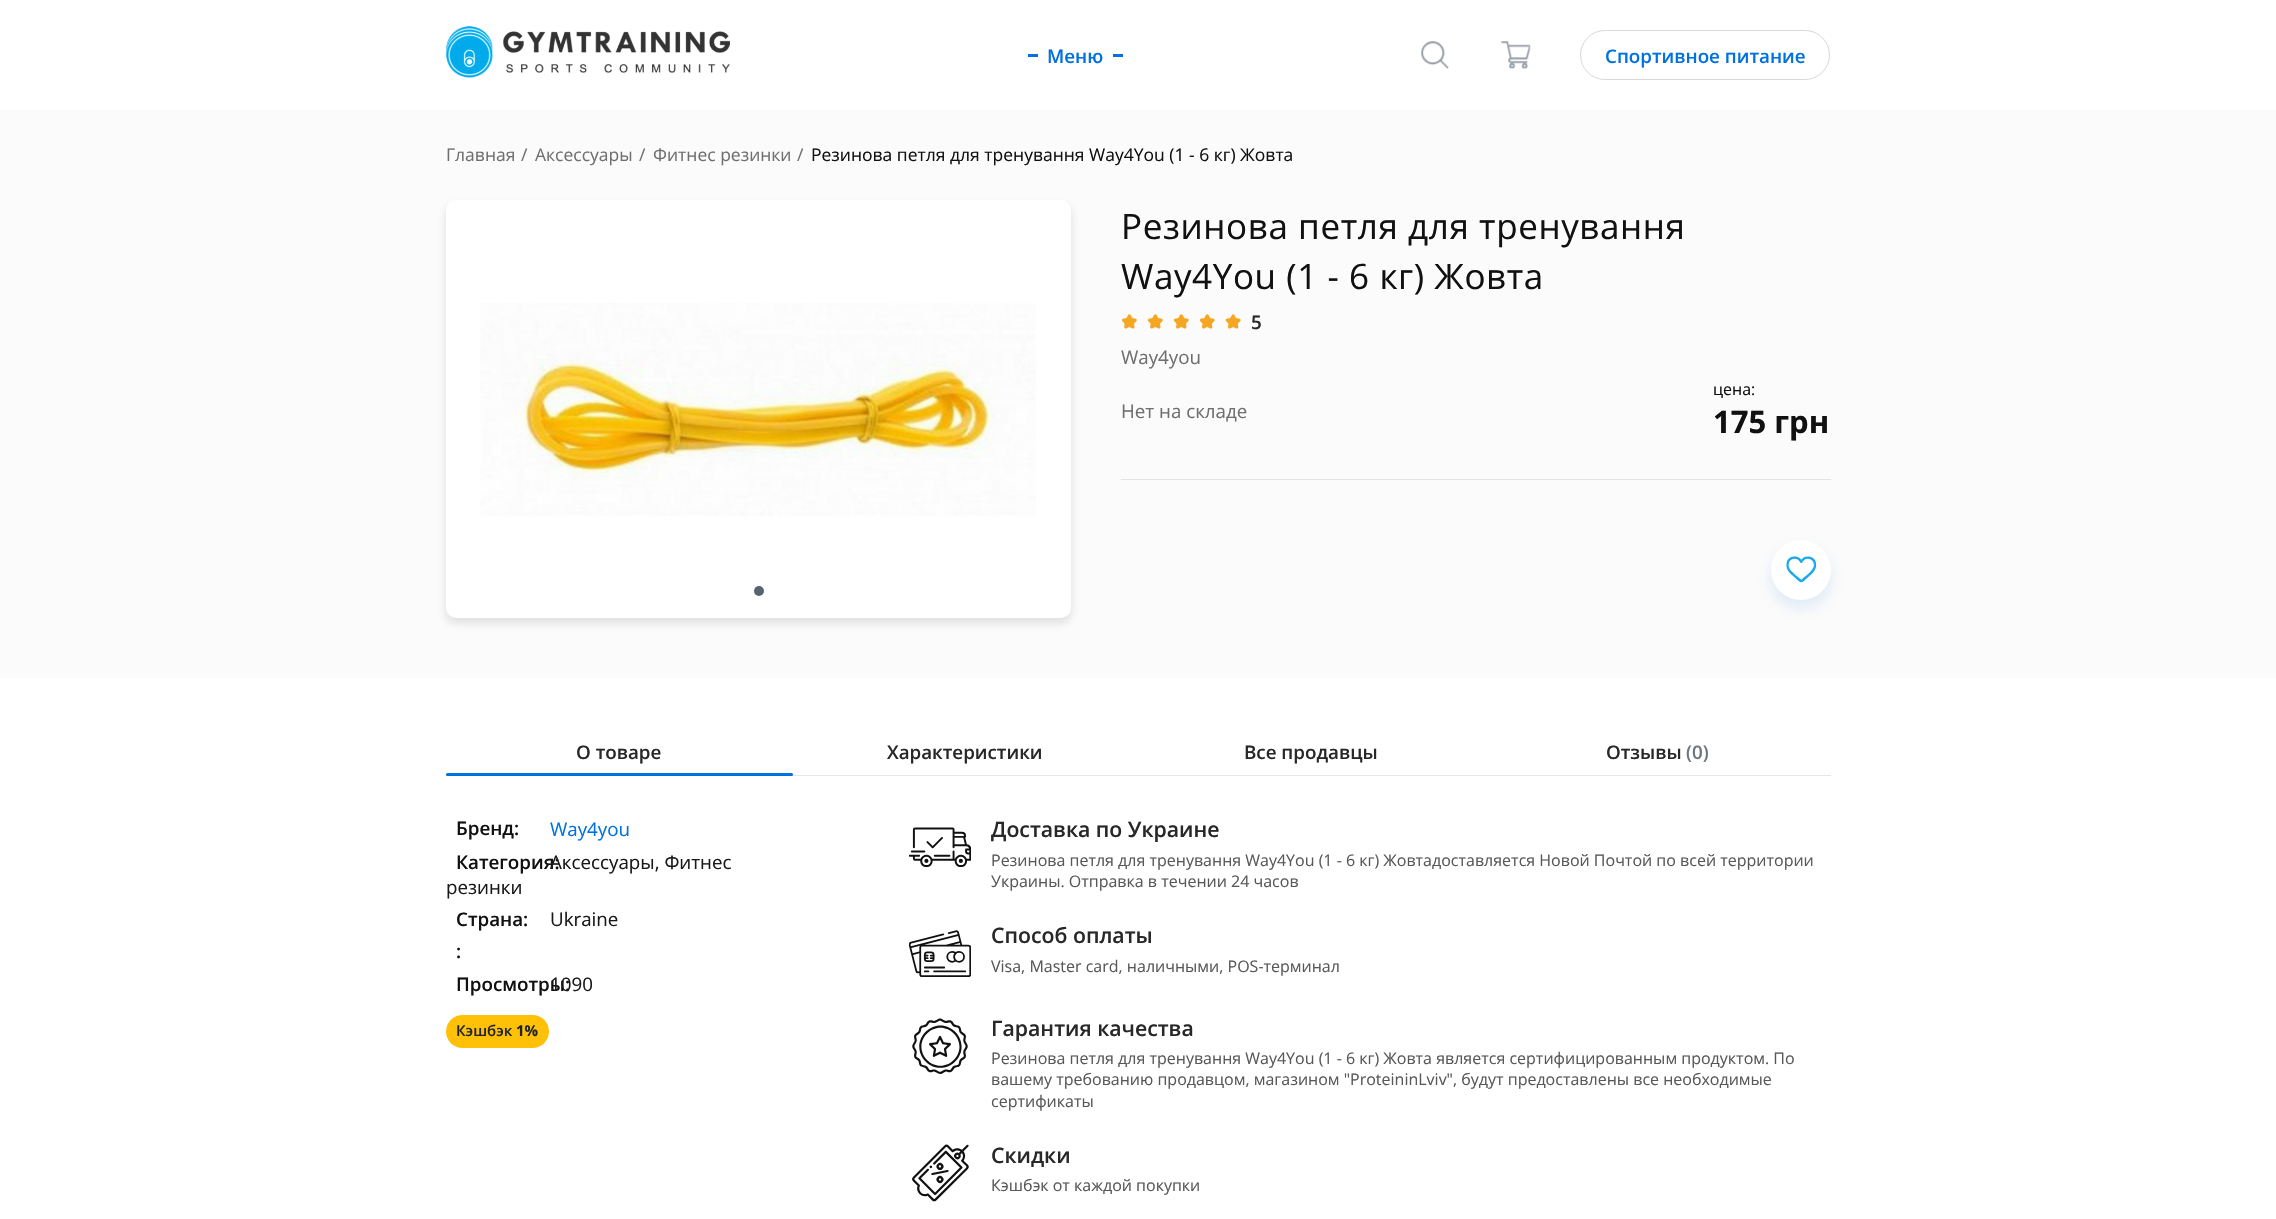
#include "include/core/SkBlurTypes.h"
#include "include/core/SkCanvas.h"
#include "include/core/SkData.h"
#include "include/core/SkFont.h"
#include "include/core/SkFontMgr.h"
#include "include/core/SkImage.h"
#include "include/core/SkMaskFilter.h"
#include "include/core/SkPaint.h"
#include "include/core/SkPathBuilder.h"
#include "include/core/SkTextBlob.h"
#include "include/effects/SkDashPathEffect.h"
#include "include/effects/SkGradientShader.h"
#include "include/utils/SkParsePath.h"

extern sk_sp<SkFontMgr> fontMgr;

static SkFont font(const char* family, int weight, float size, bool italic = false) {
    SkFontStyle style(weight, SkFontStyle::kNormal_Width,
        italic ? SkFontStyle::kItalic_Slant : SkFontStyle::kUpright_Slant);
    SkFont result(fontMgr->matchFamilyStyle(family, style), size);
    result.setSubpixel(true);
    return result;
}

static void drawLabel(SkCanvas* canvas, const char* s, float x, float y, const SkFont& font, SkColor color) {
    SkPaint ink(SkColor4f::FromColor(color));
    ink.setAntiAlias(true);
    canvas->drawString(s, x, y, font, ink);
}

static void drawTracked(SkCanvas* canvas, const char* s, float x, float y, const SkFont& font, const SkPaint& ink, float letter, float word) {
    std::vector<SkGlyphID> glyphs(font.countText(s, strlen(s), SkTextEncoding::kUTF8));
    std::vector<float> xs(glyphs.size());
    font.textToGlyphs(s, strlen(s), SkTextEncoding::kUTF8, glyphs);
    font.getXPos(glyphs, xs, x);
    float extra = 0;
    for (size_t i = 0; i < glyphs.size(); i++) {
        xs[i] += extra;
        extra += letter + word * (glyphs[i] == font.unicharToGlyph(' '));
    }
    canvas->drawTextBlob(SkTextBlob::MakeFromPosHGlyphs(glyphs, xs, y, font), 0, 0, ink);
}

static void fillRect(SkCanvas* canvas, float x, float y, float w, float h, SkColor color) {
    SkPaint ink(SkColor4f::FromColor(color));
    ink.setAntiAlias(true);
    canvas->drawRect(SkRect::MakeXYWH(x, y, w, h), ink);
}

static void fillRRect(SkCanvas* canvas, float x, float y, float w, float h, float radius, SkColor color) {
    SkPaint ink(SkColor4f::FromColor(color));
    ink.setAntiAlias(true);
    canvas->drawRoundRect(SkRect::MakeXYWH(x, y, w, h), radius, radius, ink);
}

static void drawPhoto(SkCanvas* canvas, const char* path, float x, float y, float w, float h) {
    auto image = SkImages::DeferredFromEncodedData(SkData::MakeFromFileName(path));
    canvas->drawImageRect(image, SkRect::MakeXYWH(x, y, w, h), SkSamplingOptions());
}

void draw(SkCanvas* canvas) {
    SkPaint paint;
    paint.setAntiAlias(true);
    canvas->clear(0xFFFFFFFF);
    drawPhoto(canvas, "assets/img1.png", 446, 26, 284, 52);
    fillRect(canvas, 1028, 54, 10, 3, 0xFF0071E0);
    SkFont font1 = font("Open Sans", 600, 18.75f);
    drawLabel(canvas, "Меню", 1047, 63, font1, 0xFF0071E0);
    fillRect(canvas, 1113, 54, 10, 3, 0xFF0071E0);
    drawPhoto(canvas, "assets/img2.png", 1421, 41, 28, 28);
    drawPhoto(canvas, "assets/img3.png", 1501, 41, 30, 28);
    paint.setStroke(true);
    paint.setStrokeWidth(1);
    paint.setColor(0xFFD5D8DC);
    canvas->drawRoundRect(SkRect::MakeXYWH(1580.5f, 30.5f, 249, 49), 24.5f, 24.5f, paint);
    drawLabel(canvas, "Спортивное питание", 1605, 63, font1, 0xFF0071E0);
    fillRect(canvas, 0, 110, 2276, 568, 0xFFFBFBFB);
    SkFont font2 = font("Open Sans", 400, 17.5f);
    drawLabel(canvas, "Главная", 446, 161, font2, 0xFF6F6F6F);
    drawLabel(canvas, "/", 521, 161, font2, 0xFF6F6F6F);
    drawLabel(canvas, "Аксессуары", 535, 161, font2, 0xFF6F6F6F);
    drawLabel(canvas, "/", 639, 161, font2, 0xFF6F6F6F);
    drawLabel(canvas, "Фитнес резинки", 653, 161, font2, 0xFF6F6F6F);
    drawLabel(canvas, "/", 797, 161, font2, 0xFF6F6F6F);
    drawLabel(canvas, "Резинова петля для тренування Way4You (1 - 6 кг) Жовта", 811, 161, font2, 0xFF111111);
    paint.setStroke(false);
    paint.setColor(0x1F111111);
    paint.setMaskFilter(SkMaskFilter::MakeBlur(kNormal_SkBlurStyle, 5));
    canvas->drawRoundRect(SkRect::MakeXYWH(446, 205, 625, 418), 10, 10, paint);
    paint.setMaskFilter(nullptr);
    fillRRect(canvas, 446, 200, 625, 418, 10, 0xFFFFFFFF);
    drawPhoto(canvas, "assets/img4.png", 480, 303, 556, 213);
    paint.setColor(0xFF576371);
    canvas->drawCircle(759, 591, 5, paint);
    SkFont font3 = font("Open Sans", 400, 35);
    paint.setColor(0xFF111111);
    drawTracked(canvas, "Резинова петля для тренування", 1121, 239, font3, paint, 0.6f, 0);
    drawTracked(canvas, "Way4You (1 - 6 кг) Жовта", 1121, 289, font3, paint, 0.6f, 0);
    drawPhoto(canvas, "assets/img5.png", 1122, 314, 119, 15);
    drawLabel(canvas, "5", 1251, 329, font1, 0xFF282828);
    SkFont font4 = font("Open Sans", 400, 18.75f);
    drawLabel(canvas, "Way4you", 1121, 364, font4, 0xFF6F6F6F);
    fillRect(canvas, 1121, 479, 710, 1, 0xFFE4E4E4);
    drawLabel(canvas, "Нет на складе", 1121, 418, font4, 0xFF6F6F6F);
    SkFont font5 = font("Open Sans", 400, 16);
    drawLabel(canvas, "цена:", 1713, 395, font5, 0xFF111111);
    SkFont font6 = font("Open Sans", 700, 31);
    drawLabel(canvas, "175 грн", 1713, 433, font6, 0xFF111111);
    paint.setColor(0x294A90E2);
    paint.setMaskFilter(SkMaskFilter::MakeBlur(kNormal_SkBlurStyle, 7.5f));
    canvas->drawRoundRect(SkRect::MakeXYWH(1771, 548, 60, 60), 30, 30, paint);
    paint.setMaskFilter(nullptr);
    paint.setColor(0xFFFFFFFF);
    canvas->drawCircle(1801, 570, 30, paint);
    drawPhoto(canvas, "assets/img6.png", 1786, 556, 31, 27);
    fillRect(canvas, 446, 775, 1385, 1, 0xFFE7E7E7);
    drawLabel(canvas, "О товаре", 576, 759, font1, 0xFF282828);
    drawLabel(canvas, "Характеристики", 887, 759, font1, 0xFF282828);
    drawLabel(canvas, "Все продавцы", 1244, 759, font1, 0xFF282828);
    drawLabel(canvas, "Отзывы", 1606, 759, font1, 0xFF282828);
    drawLabel(canvas, "(0)", 1686, 759, font1, 0xFF6C757D);
    fillRRect(canvas, 446, 773, 347, 3, 1.5f, 0xFF0071E0);
    drawLabel(canvas, "Бренд:", 456, 835, font1, 0xFF111111);
    drawLabel(canvas, "Way4you", 550, 836, font4, 0xFF0071E0);
    drawLabel(canvas, "Категория:", 456, 869, font1, 0xFF111111);
    drawLabel(canvas, "Аксессуары, Фитнес", 550, 869, font4, 0xFF191919);
    drawLabel(canvas, "резинки", 446, 894, font4, 0xFF191919);
    drawLabel(canvas, "Страна:", 456, 926, font1, 0xFF111111);
    drawLabel(canvas, "Ukraine", 550, 926, font4, 0xFF191919);
    drawLabel(canvas, ":", 456, 958, font1, 0xFF111111);
    drawLabel(canvas, "Просмотры:", 456, 991, font1, 0xFF111111);
    drawLabel(canvas, "1090", 550, 991, font4, 0xFF191919);
    fillRRect(canvas, 446, 1015, 103, 33, 16.5f, 0xFFFFC107);
    SkFont font7 = font("Open Sans", 600, 15);
    drawLabel(canvas, "Кэшбэк", 456, 1036, font7, 0xFF212529);
    SkFont font8 = font("Open Sans", 700, 15);
    drawLabel(canvas, "1%", 516, 1036, font8, 0xFF212529);
    drawPhoto(canvas, "assets/img7.png", 909, 827, 62, 40);
    SkFont font9 = font("Open Sans", 600, 21.25f);
    drawLabel(canvas, "Доставка по Украине", 991, 837, font9, 0xFF282828);
    drawLabel(canvas, "Резинова петля для тренування Way4You (1 - 6 кг) Жовтадоставляется Новой Почтой по всей территории", 991, 866, font5, 0xFF585858);
    drawLabel(canvas, "Украины. Отправка в течении 24 часов", 991, 887, font5, 0xFF585858);
    drawPhoto(canvas, "assets/img8.png", 909, 930, 62, 47);
    drawLabel(canvas, "Способ оплаты", 991, 943, font9, 0xFF282828);
    drawLabel(canvas, "Visa, Master card, наличными, POS-терминал", 991, 972, font5, 0xFF585858);
    drawPhoto(canvas, "assets/img9.png", 912, 1018, 56, 56);
    drawLabel(canvas, "Гарантия качества", 991, 1036, font9, 0xFF282828);
    drawLabel(canvas, "Резинова петля для тренування Way4You (1 - 6 кг) Жовта является сертифицированным продуктом. По", 991, 1064, font5, 0xFF585858);
    drawLabel(canvas, "вашему требованию продавцом, магазином \"ProteininLviv\", будут предоставлены все необходимые", 991, 1085, font5, 0xFF585858);
    drawLabel(canvas, "сертификаты", 991, 1107, font5, 0xFF585858);
    drawPhoto(canvas, "assets/img10.png", 912, 1144, 57, 58);
    drawLabel(canvas, "Скидки", 991, 1163, font9, 0xFF282828);
    drawLabel(canvas, "Кэшбэк от каждой покупки", 991, 1191, font5, 0xFF585858);
}
